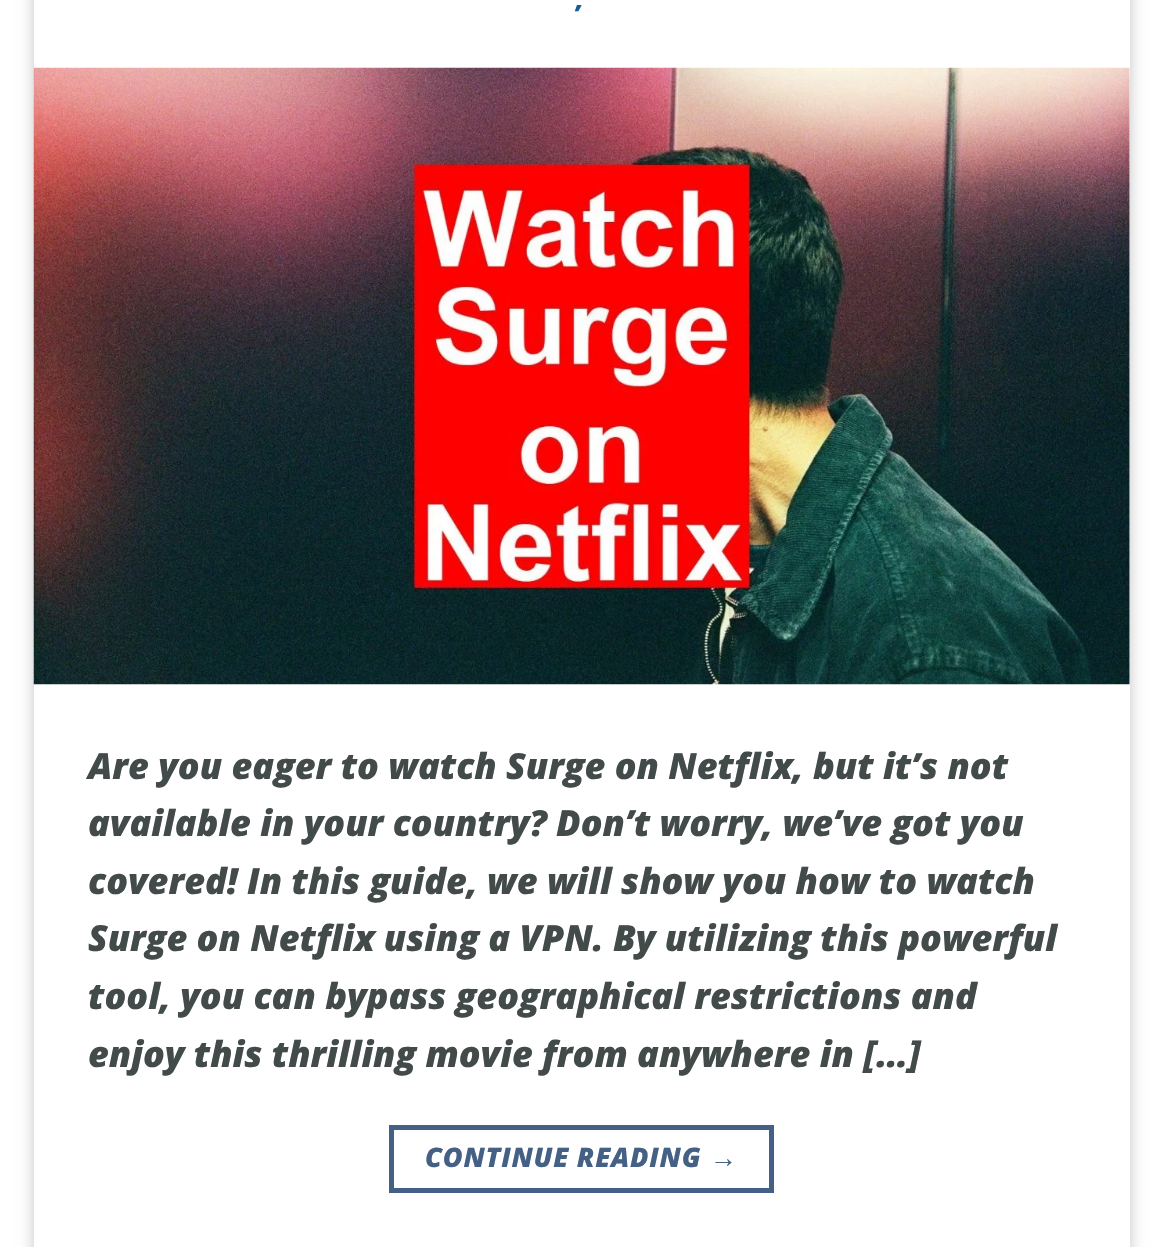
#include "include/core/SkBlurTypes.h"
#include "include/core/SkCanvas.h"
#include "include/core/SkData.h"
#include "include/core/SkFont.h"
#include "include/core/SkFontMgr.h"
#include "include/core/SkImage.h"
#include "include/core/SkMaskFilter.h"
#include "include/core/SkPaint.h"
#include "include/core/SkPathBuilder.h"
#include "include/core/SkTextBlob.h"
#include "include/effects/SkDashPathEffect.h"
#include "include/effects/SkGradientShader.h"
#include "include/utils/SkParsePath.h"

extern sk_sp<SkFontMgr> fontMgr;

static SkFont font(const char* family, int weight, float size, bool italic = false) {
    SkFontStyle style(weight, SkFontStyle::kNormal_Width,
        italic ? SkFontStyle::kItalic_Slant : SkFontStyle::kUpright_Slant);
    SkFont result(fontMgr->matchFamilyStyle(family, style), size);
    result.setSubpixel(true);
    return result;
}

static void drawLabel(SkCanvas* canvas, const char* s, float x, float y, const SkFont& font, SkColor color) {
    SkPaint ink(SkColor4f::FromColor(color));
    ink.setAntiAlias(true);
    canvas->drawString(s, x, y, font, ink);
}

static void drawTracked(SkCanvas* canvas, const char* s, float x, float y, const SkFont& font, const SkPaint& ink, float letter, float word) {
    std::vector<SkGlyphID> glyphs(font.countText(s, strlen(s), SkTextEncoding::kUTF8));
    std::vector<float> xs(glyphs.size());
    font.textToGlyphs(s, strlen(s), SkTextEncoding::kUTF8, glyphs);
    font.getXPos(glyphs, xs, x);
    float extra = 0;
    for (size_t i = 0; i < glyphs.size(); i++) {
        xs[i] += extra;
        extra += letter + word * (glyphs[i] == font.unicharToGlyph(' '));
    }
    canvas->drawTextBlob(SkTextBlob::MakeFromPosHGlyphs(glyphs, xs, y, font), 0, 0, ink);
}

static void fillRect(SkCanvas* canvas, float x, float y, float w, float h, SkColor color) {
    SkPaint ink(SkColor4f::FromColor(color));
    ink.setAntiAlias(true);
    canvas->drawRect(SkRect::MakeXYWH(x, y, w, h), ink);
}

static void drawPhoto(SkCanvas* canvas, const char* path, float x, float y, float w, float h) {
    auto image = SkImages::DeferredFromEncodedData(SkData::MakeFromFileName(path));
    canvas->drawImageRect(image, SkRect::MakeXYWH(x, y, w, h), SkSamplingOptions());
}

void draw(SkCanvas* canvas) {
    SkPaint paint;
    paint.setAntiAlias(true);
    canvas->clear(0xFFFFFFFF);
    paint.setColor(0x3B000000);
    paint.setMaskFilter(SkMaskFilter::MakeBlur(kNormal_SkBlurStyle, 7));
    canvas->drawRect(SkRect::MakeXYWH(34, -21, 1096, 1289), paint);
    paint.setMaskFilter(nullptr);
    fillRect(canvas, 34, 0, 1096, 1247, 0xFFFFFFFF);
    SkFont font1 = font("Open Sans", 800, 25, true);
    paint.setColor(0xFF185B99);
    drawTracked(canvas, ",", 576, 8, font1, paint, 1, 0);
    drawPhoto(canvas, "assets/img1.png", 33, 67, 1097, 618);
    SkFont font2 = font("Open Sans", 800, 36, true);
    drawLabel(canvas, "Are you eager to watch Surge on Netflix, but it’s not", 88, 779, font2, 0xFF434A4A);
    drawLabel(canvas, "available in your country? Don’t worry, we’ve got you", 88, 836, font2, 0xFF434A4A);
    drawLabel(canvas, "covered! In this guide, we will show you how to watch", 88, 894, font2, 0xFF434A4A);
    drawLabel(canvas, "Surge on Netflix using a VPN. By utilizing this powerful", 88, 951, font2, 0xFF434A4A);
    drawLabel(canvas, "tool, you can bypass geographical restrictions and", 88, 1009, font2, 0xFF434A4A);
    drawLabel(canvas, "enjoy this thrilling movie from anywhere in […]", 88, 1067, font2, 0xFF434A4A);
    paint.setStroke(true);
    paint.setStrokeWidth(5);
    paint.setColor(0xFF446084);
    canvas->drawRect(SkRect::MakeXYWH(391.5f, 1127.5f, 380, 63), paint);
    SkFont font3 = font("Open Sans", 800, 27, true);
    paint.setStroke(false);
    drawTracked(canvas, "CONTINUE READING", 425, 1167, font3, paint, 0.75f, 0);
    SkFont font4 = font("Liberation Sans", 700, 27, true);
    drawTracked(canvas, "→", 710, 1167, font4, paint, 0.75f, 0);
}
